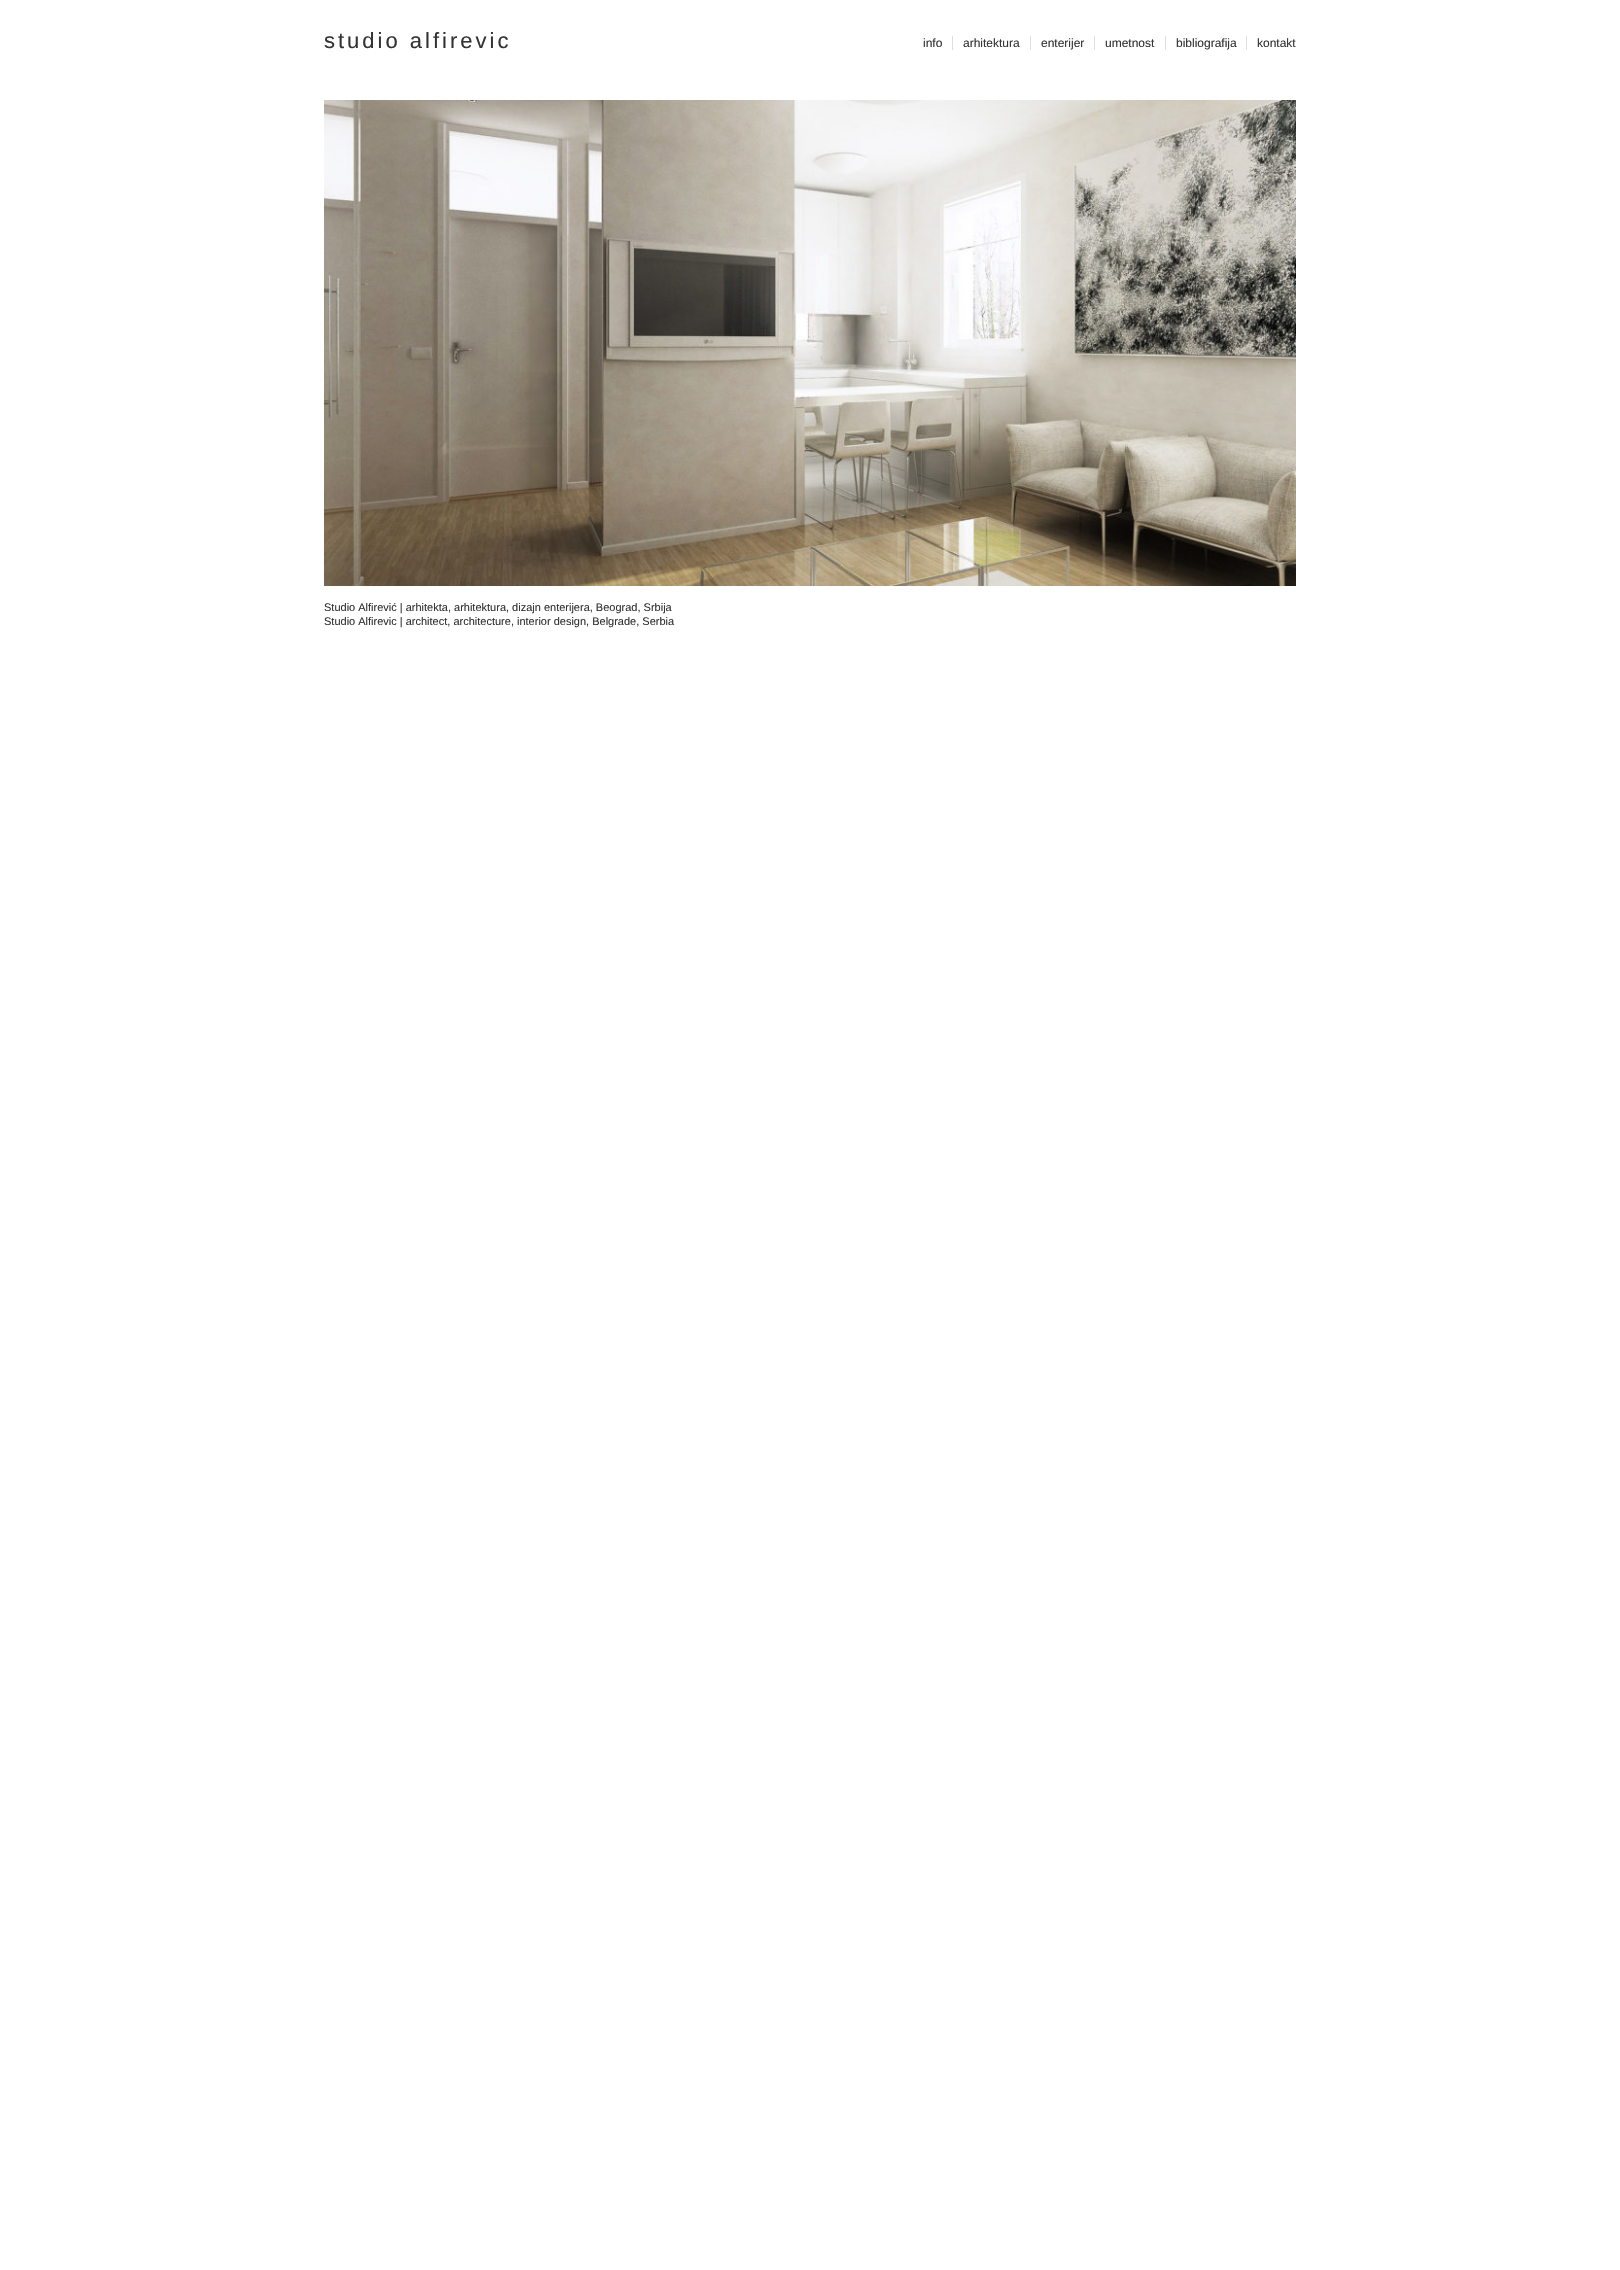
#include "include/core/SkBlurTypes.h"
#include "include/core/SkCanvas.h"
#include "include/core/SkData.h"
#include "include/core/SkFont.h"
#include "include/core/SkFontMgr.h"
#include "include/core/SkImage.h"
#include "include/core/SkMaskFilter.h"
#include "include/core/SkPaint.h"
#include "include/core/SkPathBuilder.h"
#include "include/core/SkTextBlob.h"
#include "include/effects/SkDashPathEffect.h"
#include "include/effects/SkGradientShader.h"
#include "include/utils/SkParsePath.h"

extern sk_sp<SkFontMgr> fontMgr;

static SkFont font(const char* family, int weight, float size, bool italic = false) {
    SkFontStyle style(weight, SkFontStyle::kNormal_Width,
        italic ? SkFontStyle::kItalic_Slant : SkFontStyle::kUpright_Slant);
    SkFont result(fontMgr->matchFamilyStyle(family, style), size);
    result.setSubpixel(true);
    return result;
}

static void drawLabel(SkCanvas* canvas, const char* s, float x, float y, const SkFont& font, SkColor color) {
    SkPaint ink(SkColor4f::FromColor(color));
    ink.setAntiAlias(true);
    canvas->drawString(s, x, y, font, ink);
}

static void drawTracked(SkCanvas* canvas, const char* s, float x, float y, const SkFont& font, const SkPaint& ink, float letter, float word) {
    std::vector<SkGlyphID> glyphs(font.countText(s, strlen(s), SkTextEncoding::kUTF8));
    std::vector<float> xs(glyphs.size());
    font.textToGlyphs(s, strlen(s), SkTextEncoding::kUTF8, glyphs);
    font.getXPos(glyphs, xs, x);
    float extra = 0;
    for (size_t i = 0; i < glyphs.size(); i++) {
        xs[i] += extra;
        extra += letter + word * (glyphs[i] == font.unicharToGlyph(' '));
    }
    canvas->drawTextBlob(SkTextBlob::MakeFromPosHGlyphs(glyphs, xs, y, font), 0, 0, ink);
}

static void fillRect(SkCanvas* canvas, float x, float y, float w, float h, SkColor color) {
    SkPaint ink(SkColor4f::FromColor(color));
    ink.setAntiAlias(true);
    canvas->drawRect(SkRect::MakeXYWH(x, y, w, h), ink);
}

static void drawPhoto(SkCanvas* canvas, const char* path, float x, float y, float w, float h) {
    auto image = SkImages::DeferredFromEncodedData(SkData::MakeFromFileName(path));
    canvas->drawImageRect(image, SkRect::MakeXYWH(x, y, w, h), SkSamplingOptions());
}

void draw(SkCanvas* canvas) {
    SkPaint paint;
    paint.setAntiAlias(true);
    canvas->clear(0xFFFFFFFF);
    SkFont font1 = font("Liberation Sans", 400, 22);
    paint.setColor(0xFF333333);
    drawTracked(canvas, "studio alfirevic", 324, 48, font1, paint, 3, 0);
    fillRect(canvas, 952, 36, 1, 14, 0xFFDEDEDE);
    SkFont font2 = font("Liberation Sans", 400, 12);
    drawLabel(canvas, "info", 923, 47, font2, 0xFF333333);
    fillRect(canvas, 1030, 36, 1, 14, 0xFFDEDEDE);
    drawLabel(canvas, "arhitektura", 963, 47, font2, 0xFF333333);
    fillRect(canvas, 1094, 36, 1, 14, 0xFFDEDEDE);
    drawLabel(canvas, "enterijer", 1041, 47, font2, 0xFF333333);
    fillRect(canvas, 1165, 36, 1, 14, 0xFFDEDEDE);
    drawLabel(canvas, "umetnost", 1105, 47, font2, 0xFF333333);
    fillRect(canvas, 1246, 36, 1, 14, 0xFFDEDEDE);
    drawLabel(canvas, "bibliografija", 1176, 47, font2, 0xFF333333);
    drawLabel(canvas, "kontakt", 1257, 47, font2, 0xFF333333);
    drawPhoto(canvas, "assets/img1.png", 324, 100, 972, 486);
    SkFont font3 = font("Liberation Sans", 400, 11);
    drawLabel(canvas, "Studio Alfirević | arhitekta, arhitektura, dizajn enterijera, Beograd, Srbija", 324, 611, font3, 0xFF333333);
    drawLabel(canvas, "Studio Alfirevic | architect, architecture, interior design, Belgrade, Serbia", 324, 625, font3, 0xFF333333);
}
